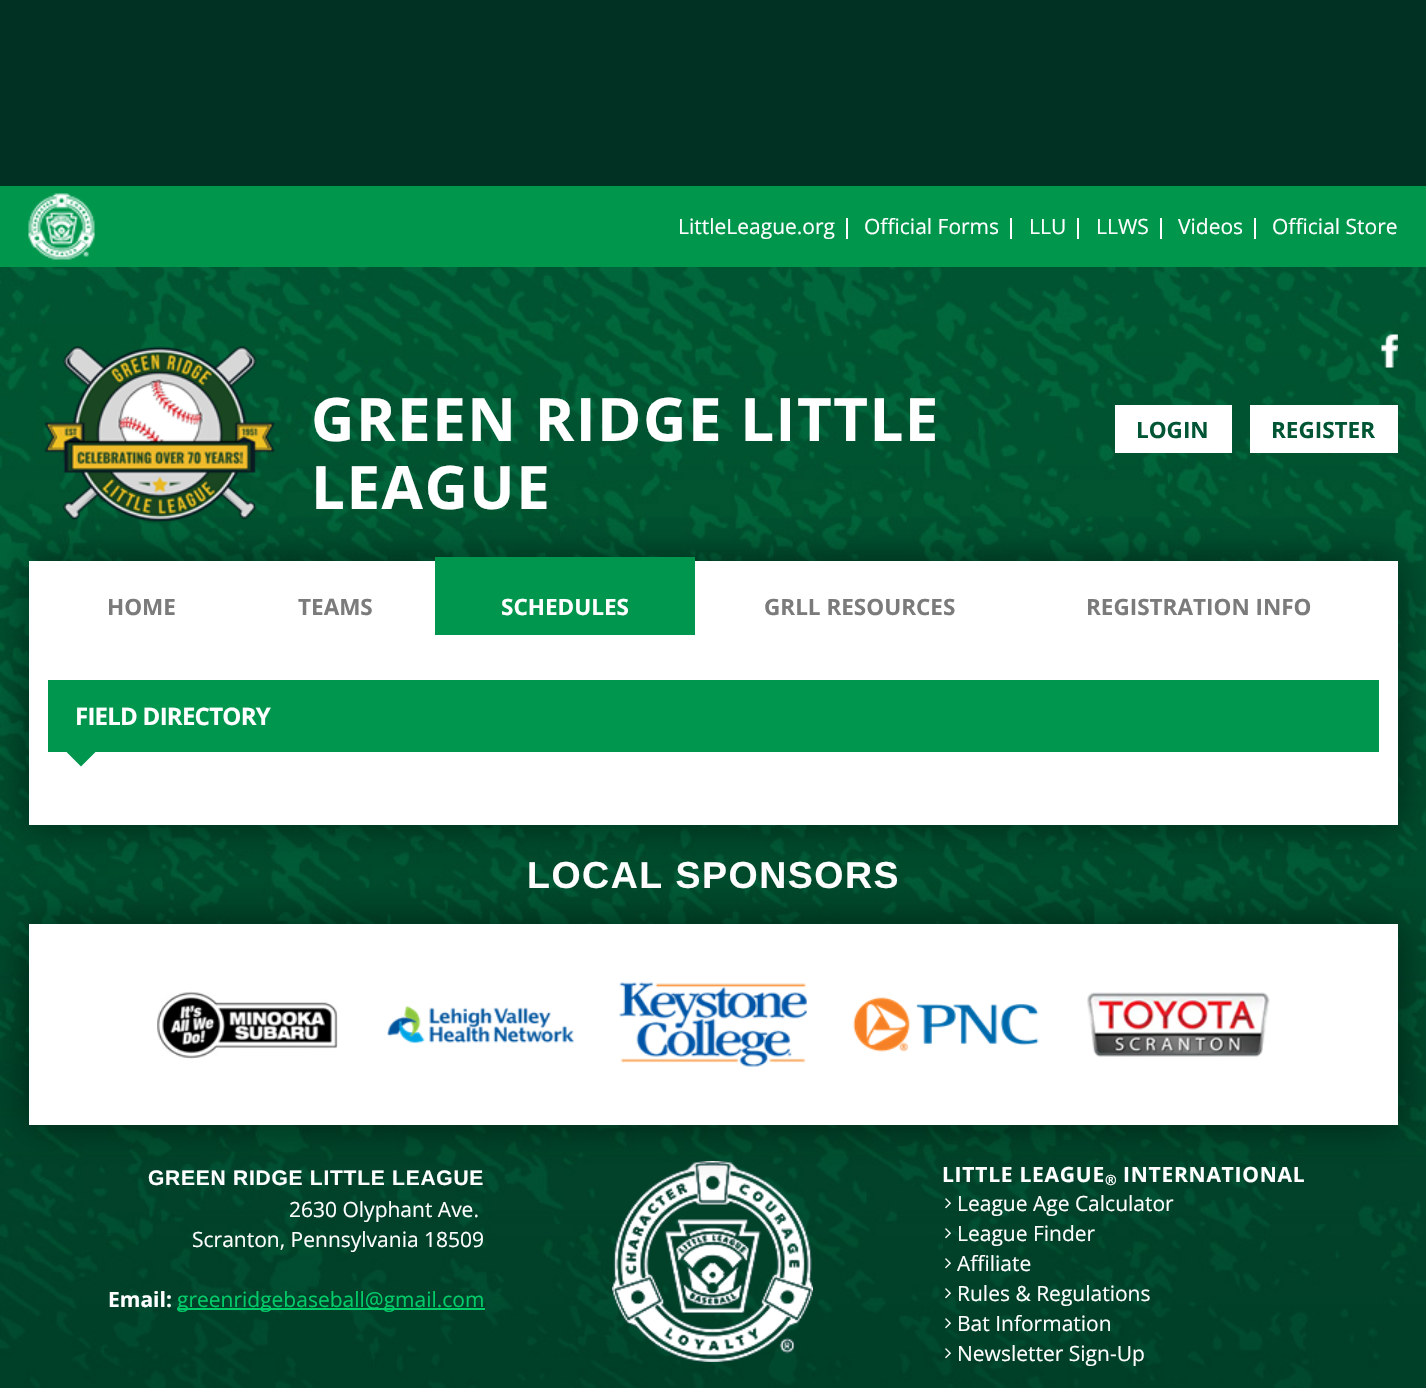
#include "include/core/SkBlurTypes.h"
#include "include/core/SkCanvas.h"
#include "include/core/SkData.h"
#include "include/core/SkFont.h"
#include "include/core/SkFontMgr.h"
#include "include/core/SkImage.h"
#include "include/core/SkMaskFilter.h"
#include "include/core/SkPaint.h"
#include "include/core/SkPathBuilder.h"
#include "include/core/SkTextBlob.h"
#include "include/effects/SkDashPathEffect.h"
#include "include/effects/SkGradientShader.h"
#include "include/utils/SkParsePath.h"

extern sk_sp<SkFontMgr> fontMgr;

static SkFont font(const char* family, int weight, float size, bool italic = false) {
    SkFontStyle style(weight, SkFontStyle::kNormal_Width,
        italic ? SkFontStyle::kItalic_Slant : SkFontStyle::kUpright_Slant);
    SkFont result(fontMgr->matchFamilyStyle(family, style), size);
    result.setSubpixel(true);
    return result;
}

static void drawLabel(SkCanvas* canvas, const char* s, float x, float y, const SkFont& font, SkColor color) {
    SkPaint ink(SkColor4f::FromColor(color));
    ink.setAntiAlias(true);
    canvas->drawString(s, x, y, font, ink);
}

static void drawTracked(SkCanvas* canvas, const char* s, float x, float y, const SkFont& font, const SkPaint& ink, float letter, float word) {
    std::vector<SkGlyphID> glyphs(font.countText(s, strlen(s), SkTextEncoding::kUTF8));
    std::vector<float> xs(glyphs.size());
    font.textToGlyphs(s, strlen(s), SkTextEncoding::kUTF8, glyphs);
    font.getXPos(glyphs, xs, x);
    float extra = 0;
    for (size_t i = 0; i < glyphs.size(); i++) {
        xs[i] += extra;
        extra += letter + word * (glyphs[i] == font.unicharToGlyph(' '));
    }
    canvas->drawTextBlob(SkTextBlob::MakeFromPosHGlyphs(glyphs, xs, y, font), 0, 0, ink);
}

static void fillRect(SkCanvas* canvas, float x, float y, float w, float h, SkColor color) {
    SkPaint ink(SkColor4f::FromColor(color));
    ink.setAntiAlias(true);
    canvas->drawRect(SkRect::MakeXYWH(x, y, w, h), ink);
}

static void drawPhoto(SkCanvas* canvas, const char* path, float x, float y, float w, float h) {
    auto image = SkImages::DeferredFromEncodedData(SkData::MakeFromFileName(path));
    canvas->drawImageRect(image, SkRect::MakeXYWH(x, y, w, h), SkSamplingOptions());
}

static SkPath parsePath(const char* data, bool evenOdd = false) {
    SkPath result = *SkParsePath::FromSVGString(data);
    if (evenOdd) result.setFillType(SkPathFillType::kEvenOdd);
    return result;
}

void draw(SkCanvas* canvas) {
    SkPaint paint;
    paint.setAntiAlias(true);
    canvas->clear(0xFFFFFFFF);
    drawPhoto(canvas, "assets/img1.png", 0, 267, 1426, 1121);
    fillRect(canvas, 0, 0, 1426, 186, 0xFF013123);
    fillRect(canvas, 0, 186, 1426, 81, 0xFF00974D);
    drawPhoto(canvas, "assets/img2.png", 28, 193, 67, 67);
    SkFont font1 = font("Open Sans", 400, 21);
    drawLabel(canvas, "LittleLeague.org", 678, 234, font1, 0xFFFFFFFF);
    fillRect(canvas, 846, 218, 2, 21, 0xFFFFFFFF);
    drawLabel(canvas, "Official Forms", 864, 234, font1, 0xFFFFFFFF);
    fillRect(canvas, 1010, 218, 2, 21, 0xFFFFFFFF);
    drawLabel(canvas, "LLU", 1029, 234, font1, 0xFFFFFFFF);
    fillRect(canvas, 1077, 218, 2, 21, 0xFFFFFFFF);
    drawLabel(canvas, "LLWS", 1096, 234, font1, 0xFFFFFFFF);
    fillRect(canvas, 1160, 218, 2, 21, 0xFFFFFFFF);
    drawLabel(canvas, "Videos", 1178, 234, font1, 0xFFFFFFFF);
    fillRect(canvas, 1254, 218, 2, 21, 0xFFFFFFFF);
    drawLabel(canvas, "Official Store", 1272, 234, font1, 0xFFFFFFFF);
    fillRect(canvas, 29, 561, 1369, 264, 0xFFFFFFFF);
    canvas->save();
    canvas->clipPath(parsePath("M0 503H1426V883H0ZM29 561H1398V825H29Z", true), true);
    paint.setColor(0x80000000);
    paint.setMaskFilter(SkMaskFilter::MakeBlur(kNormal_SkBlurStyle, 19));
    canvas->drawRect(SkRect::MakeXYWH(29, 561, 1369, 264), paint);
    paint.setMaskFilter(nullptr);
    canvas->restore();
    drawPhoto(canvas, "assets/img3.png", 44, 346, 231, 176);
    SkFont font2 = font("Open Sans", 700, 60);
    paint.setColor(0xFFFFFFFF);
    drawTracked(canvas, "GREEN RIDGE LITTLE", 311, 441, font2, paint, 1.5f, 0);
    drawTracked(canvas, "LEAGUE", 311, 509, font2, paint, 1.5f, 0);
    drawPhoto(canvas, "assets/img4.png", 1381, 334, 17, 34);
    fillRect(canvas, 1115, 405, 117, 48, 0xFFFFFFFF);
    SkFont font3 = font("Open Sans", 700, 22.5f);
    drawLabel(canvas, "LOGIN", 1136, 438, font3, 0xFF005634);
    fillRect(canvas, 1250, 405, 148, 48, 0xFFFFFFFF);
    drawLabel(canvas, "REGISTER", 1271, 438, font3, 0xFF005634);
    drawLabel(canvas, "HOME", 107, 615, font3, 0xFF7B7B7B);
    drawLabel(canvas, "TEAMS", 298, 615, font3, 0xFF7B7B7B);
    fillRect(canvas, 435, 557, 260, 78, 0xFF00964E);
    drawLabel(canvas, "SCHEDULES", 501, 615, font3, 0xFFFFFFFF);
    drawLabel(canvas, "GRLL RESOURCES", 764, 615, font3, 0xFF7B7B7B);
    drawLabel(canvas, "REGISTRATION INFO", 1086, 615, font3, 0xFF7B7B7B);
    fillRect(canvas, 48, 680, 1331, 72, 0xFF00964E);
    SkFont font4 = font("Open Sans", 700, 24);
    drawTracked(canvas, "FIELD DIRECTORY", 75, 725, font4, paint, -0.75f, 0);
    paint.setColor(0xFF00964E);
    canvas->drawPath(parsePath("M66 751.5H96L81 766.5Z"), paint);
    SkFont font5 = font("Liberation Sans", 700, 37.5f);
    paint.setColor(0xFFFFFFFF);
    drawTracked(canvas, "LOCAL SPONSORS", 527, 888, font5, paint, 1.5f, 0);
    drawPhoto(canvas, "assets/img10.png", 612, 1161, 201, 201);
    paint.setColor(0x80000000);
    paint.setMaskFilter(SkMaskFilter::MakeBlur(kNormal_SkBlurStyle, 19));
    canvas->drawRect(SkRect::MakeXYWH(29, 924, 1369, 201), paint);
    paint.setMaskFilter(nullptr);
    fillRect(canvas, 29, 924, 1369, 201, 0xFFFFFFFF);
    drawPhoto(canvas, "assets/img5.png", 157, 991, 181, 68);
    drawPhoto(canvas, "assets/img6.png", 387, 1006, 188, 38);
    drawPhoto(canvas, "assets/img7.png", 619, 982, 188, 85);
    drawPhoto(canvas, "assets/img8.png", 853, 997, 186, 55);
    drawPhoto(canvas, "assets/img9.png", 1087, 992, 183, 65);
    SkFont font6 = font("Liberation Sans", 700, 21);
    paint.setColor(0xFFFFFFFF);
    drawTracked(canvas, "GREEN RIDGE LITTLE LEAGUE", 148, 1185, font6, paint, 0.75f, 0);
    drawLabel(canvas, "2630 Olyphant Ave.", 289, 1217, font1, 0xFFFFFFFF);
    drawLabel(canvas, "Scranton, Pennsylvania 18509", 192, 1247, font1, 0xFFFFFFFF);
    SkFont font7 = font("Open Sans", 700, 21);
    drawLabel(canvas, "Email:", 108, 1307, font7, 0xFFFFFFFF);
    fillRect(canvas, 177, 1308, 308, 2, 0xFF02CC69);
    drawLabel(canvas, "greenridgebaseball@gmail.com", 177, 1307, font1, 0xFF02CC69);
    drawTracked(canvas, "LITTLE LEAGUE", 942, 1182, font7, paint, 0.75f, 0);
    SkFont font8 = font("Open Sans", 700, 14);
    drawTracked(canvas, "®", 1105, 1185, font8, paint, 0.75f, 0);
    drawTracked(canvas, "INTERNATIONAL", 1123, 1182, font7, paint, 0.75f, 0);
    drawPhoto(canvas, "assets/img11.png", 945, 1198, 6, 11);
    drawLabel(canvas, "League Age Calculator", 957, 1211, font1, 0xFFFFFFFF);
    drawPhoto(canvas, "assets/img12.png", 945, 1228, 6, 11);
    drawLabel(canvas, "League Finder", 957, 1241, font1, 0xFFFFFFFF);
    drawPhoto(canvas, "assets/img13.png", 945, 1258, 6, 11);
    drawLabel(canvas, "Affiliate", 957, 1271, font1, 0xFFFFFFFF);
    drawPhoto(canvas, "assets/img14.png", 945, 1288, 6, 11);
    drawLabel(canvas, "Rules & Regulations", 957, 1301, font1, 0xFFFFFFFF);
    drawPhoto(canvas, "assets/img15.png", 945, 1318, 6, 11);
    drawLabel(canvas, "Bat Information", 957, 1331, font1, 0xFFFFFFFF);
    drawPhoto(canvas, "assets/img16.png", 945, 1348, 6, 11);
    drawLabel(canvas, "Newsletter Sign-Up", 957, 1361, font1, 0xFFFFFFFF);
}
